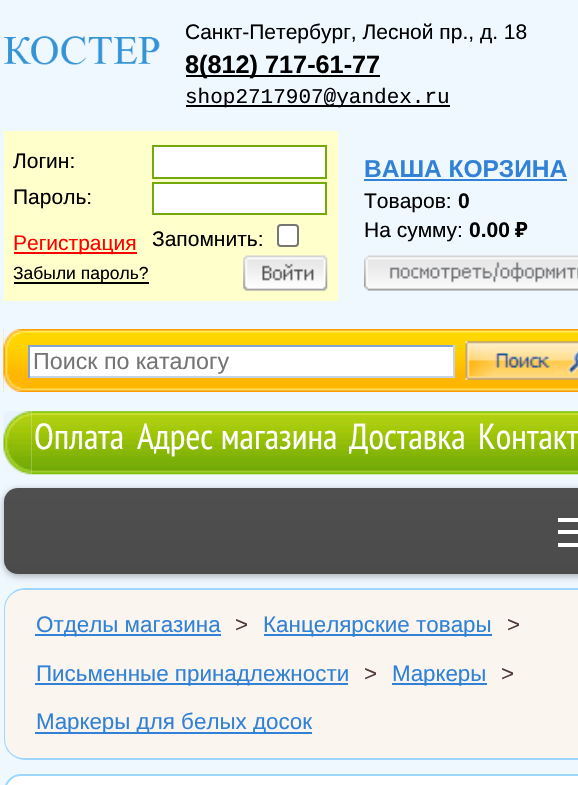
#include "include/core/SkBlurTypes.h"
#include "include/core/SkCanvas.h"
#include "include/core/SkData.h"
#include "include/core/SkFont.h"
#include "include/core/SkFontMgr.h"
#include "include/core/SkImage.h"
#include "include/core/SkMaskFilter.h"
#include "include/core/SkPaint.h"
#include "include/core/SkPathBuilder.h"
#include "include/core/SkTextBlob.h"
#include "include/effects/SkDashPathEffect.h"
#include "include/effects/SkGradientShader.h"
#include "include/utils/SkParsePath.h"

extern sk_sp<SkFontMgr> fontMgr;

static SkFont font(const char* family, int weight, float size, bool italic = false) {
    SkFontStyle style(weight, SkFontStyle::kNormal_Width,
        italic ? SkFontStyle::kItalic_Slant : SkFontStyle::kUpright_Slant);
    SkFont result(fontMgr->matchFamilyStyle(family, style), size);
    result.setSubpixel(true);
    return result;
}

static void drawLabel(SkCanvas* canvas, const char* s, float x, float y, const SkFont& font, SkColor color) {
    SkPaint ink(SkColor4f::FromColor(color));
    ink.setAntiAlias(true);
    canvas->drawString(s, x, y, font, ink);
}

static void fillRect(SkCanvas* canvas, float x, float y, float w, float h, SkColor color) {
    SkPaint ink(SkColor4f::FromColor(color));
    ink.setAntiAlias(true);
    canvas->drawRect(SkRect::MakeXYWH(x, y, w, h), ink);
}

static void fillRRect(SkCanvas* canvas, float x, float y, float w, float h, float radius, SkColor color) {
    SkPaint ink(SkColor4f::FromColor(color));
    ink.setAntiAlias(true);
    canvas->drawRoundRect(SkRect::MakeXYWH(x, y, w, h), radius, radius, ink);
}

static void drawPhoto(SkCanvas* canvas, const char* path, float x, float y, float w, float h) {
    auto image = SkImages::DeferredFromEncodedData(SkData::MakeFromFileName(path));
    canvas->drawImageRect(image, SkRect::MakeXYWH(x, y, w, h), SkSamplingOptions());
}

void draw(SkCanvas* canvas) {
    SkPaint paint;
    paint.setAntiAlias(true);
    canvas->clear(0xFFEFF7FF);
    drawPhoto(canvas, "assets/img1.png", 4, 36, 156, 29);
    SkFont font1 = font("Liberation Sans", 400, 21);
    drawLabel(canvas, "Санкт-Петербург, Лесной пр., д. 18", 185, 39, font1, 0xFF000000);
    fillRect(canvas, 186, 75, 194, 2, 0xFF000000);
    SkFont font2 = font("Liberation Sans", 700, 25.25f);
    drawLabel(canvas, "8(812) 717-61-77", 185, 73, font2, 0xFF000000);
    fillRect(canvas, 186, 105, 264, 2, 0xFF000000);
    SkFont font3 = font("Liberation Mono", 400, 21);
    drawLabel(canvas, "shop2717907@yandex.ru", 185, 103, font3, 0xFF000000);
    fillRect(canvas, 4, 131, 334, 170, 0xFFFFFFCC);
    drawLabel(canvas, "Логин:", 13, 168, font1, 0xFF000000);
    paint.setColor(0xFFFFFFFF);
    canvas->drawRect(SkRect::MakeXYWH(153, 146, 173, 32), paint);
    paint.setStroke(true);
    paint.setStrokeWidth(2);
    paint.setColor(0xFF73AA07);
    canvas->drawRect(SkRect::MakeXYWH(153, 146, 173, 32), paint);
    drawLabel(canvas, "Пароль:", 13, 204, font1, 0xFF000000);
    paint.setStroke(false);
    paint.setColor(0xFFFFFFFF);
    canvas->drawRect(SkRect::MakeXYWH(153, 183, 173, 31), paint);
    paint.setStroke(true);
    paint.setColor(0xFF73AA07);
    canvas->drawRect(SkRect::MakeXYWH(153, 183, 173, 31), paint);
    fillRect(canvas, 14, 252, 123, 2, 0xFFFF0000);
    drawLabel(canvas, "Регистрация", 13, 250, font1, 0xFFFF0000);
    fillRect(canvas, 14, 282, 135, 2, 0xFF000000);
    SkFont font4 = font("Liberation Sans", 400, 17.5f);
    drawLabel(canvas, "Забыли пароль?", 13, 279, font4, 0xFF000000);
    drawLabel(canvas, "Запомнить:", 152, 246, font1, 0xFF000000);
    paint.setStroke(false);
    paint.setColor(0xFFFFFFFF);
    canvas->drawRoundRect(SkRect::MakeXYWH(278, 225, 20, 21), 3, 3, paint);
    paint.setStroke(true);
    paint.setColor(0xFF767676);
    canvas->drawRoundRect(SkRect::MakeXYWH(278, 225, 20, 21), 3, 3, paint);
    drawPhoto(canvas, "assets/img2.png", 243, 255, 85, 36);
    SkFont font5 = font("Liberation Sans", 700, 24.5f);
    drawLabel(canvas, "ВАША КОРЗИНА", 364, 177, font5, 0xFF3182D6);
    fillRect(canvas, 364, 179, 203, 2, 0xFF3182D6);
    drawLabel(canvas, "Товаров:", 364, 208, font1, 0xFF000000);
    SkFont font6 = font("Liberation Sans", 700, 21);
    drawLabel(canvas, "0", 458, 208, font6, 0xFF000000);
    drawLabel(canvas, "На сумму:", 364, 237, font1, 0xFF000000);
    drawLabel(canvas, "0.00", 469, 237, font6, 0xFF000000);
    SkFont font7 = font("Noto Sans", 700, 21);
    drawLabel(canvas, "₽", 515, 237, font7, 0xFF000000);
    drawPhoto(canvas, "assets/img3.png", 364, 255, 214, 36);
    drawPhoto(canvas, "assets/img4.png", 3, 329, 575, 63);
    drawPhoto(canvas, "assets/img5.png", 3, 329, 25, 63);
    fillRect(canvas, 30, 347, 423, 29, 0xFFFFFFFF);
    fillRect(canvas, 28, 345, 427, 2, 0xFF84A6CE);
    fillRect(canvas, 453, 345, 2, 33, 0xFFC6D3E7);
    fillRect(canvas, 28, 376, 427, 2, 0xFFC6D3E7);
    fillRect(canvas, 28, 345, 2, 33, 0xFF84A6CE);
    SkFont font8 = font("Liberation Sans", 400, 23.25f);
    drawLabel(canvas, "Поиск по каталогу", 33, 369, font8, 0xFF757575);
    drawPhoto(canvas, "assets/img6.png", 465, 341, 113, 39);
    drawPhoto(canvas, "assets/img7.png", 3, 411, 29, 64);
    drawPhoto(canvas, "assets/img8.png", 31, 411, 547, 64);
    SkFont font9 = font("PT Sans Narrow", 400, 36);
    drawLabel(canvas, "Оплата", 34, 449, font9, 0xFFFFFFFF);
    drawLabel(canvas, "Адрес магазина", 137, 449, font9, 0xFFFFFFFF);
    drawLabel(canvas, "Доставка", 349, 449, font9, 0xFFFFFFFF);
    drawLabel(canvas, "Контакт", 478, 449, font9, 0xFFFFFFFF);
    paint.setStroke(false);
    paint.setColor(0x4D000000);
    paint.setMaskFilter(SkMaskFilter::MakeBlur(kNormal_SkBlurStyle, 3.5f));
    canvas->drawRoundRect(SkRect::MakeXYWH(4, 490, 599, 86), 14, 14, paint);
    paint.setMaskFilter(nullptr);
    {
        const SkColor colors[] = {0xFF4F4F4F, 0xFF4B4B4B};
        const float stops[] = {0, 1};
        const SkPoint ends[] = {{313, 488}, {313, 574}};
        paint.setShader(SkGradientShader::MakeLinear(ends, colors, stops, 2, SkTileMode::kClamp));
        paint.setAlpha(255);
    }
    canvas->drawRoundRect(SkRect::MakeXYWH(4, 488, 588, 86), 14, 14, paint);
    fillRect(canvas, 558, 530, 20, 4, 0xFFFFFFFF);
    fillRect(canvas, 558, 518, 20, 4, 0xFFFFFFFF);
    fillRect(canvas, 558, 543, 20, 4, 0xFFFFFFFF);
    paint.setStroke(true);
    paint.setShader(nullptr);
    paint.setColor(0xFF9DD7FF);
    canvas->drawRoundRect(SkRect::MakeXYWH(5, 589, 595, 170), 20, 20, paint);
    fillRRect(canvas, 5, 590, 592, 168, 19, 0xFFFAF5EF);
    fillRect(canvas, 35, 634, 186, 2, 0xFF3182D6);
    SkFont font10 = font("Liberation Sans", 400, 22.4f);
    drawLabel(canvas, "Отделы магазина", 36, 632, font10, 0xFF3182D6);
    drawLabel(canvas, ">", 235, 632, font10, 0xFF503A3C);
    fillRect(canvas, 264, 634, 228, 2, 0xFF3182D6);
    drawLabel(canvas, "Канцелярские товары", 263, 632, font10, 0xFF3182D6);
    drawLabel(canvas, ">", 507, 632, font10, 0xFF503A3C);
    fillRect(canvas, 35, 683, 313, 2, 0xFF3182D6);
    drawLabel(canvas, "Письменные принадлежности", 36, 681, font10, 0xFF3182D6);
    drawLabel(canvas, ">", 364, 681, font10, 0xFF503A3C);
    fillRect(canvas, 392, 683, 95, 2, 0xFF3182D6);
    drawLabel(canvas, "Маркеры", 392, 681, font10, 0xFF3182D6);
    drawLabel(canvas, ">", 501, 681, font10, 0xFF503A3C);
    fillRect(canvas, 35, 732, 277, 2, 0xFF3182D6);
    drawLabel(canvas, "Маркеры для белых досок", 36, 729, font10, 0xFF3182D6);
    paint.setStroke(false);
    paint.setColor(0xFFFFFFFF);
    canvas->drawRoundRect(SkRect::MakeXYWH(5, 775, 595, 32), 20, 20, paint);
    paint.setStroke(true);
    paint.setColor(0xFF9DD7FF);
    canvas->drawRoundRect(SkRect::MakeXYWH(5, 775, 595, 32), 20, 20, paint);
}
